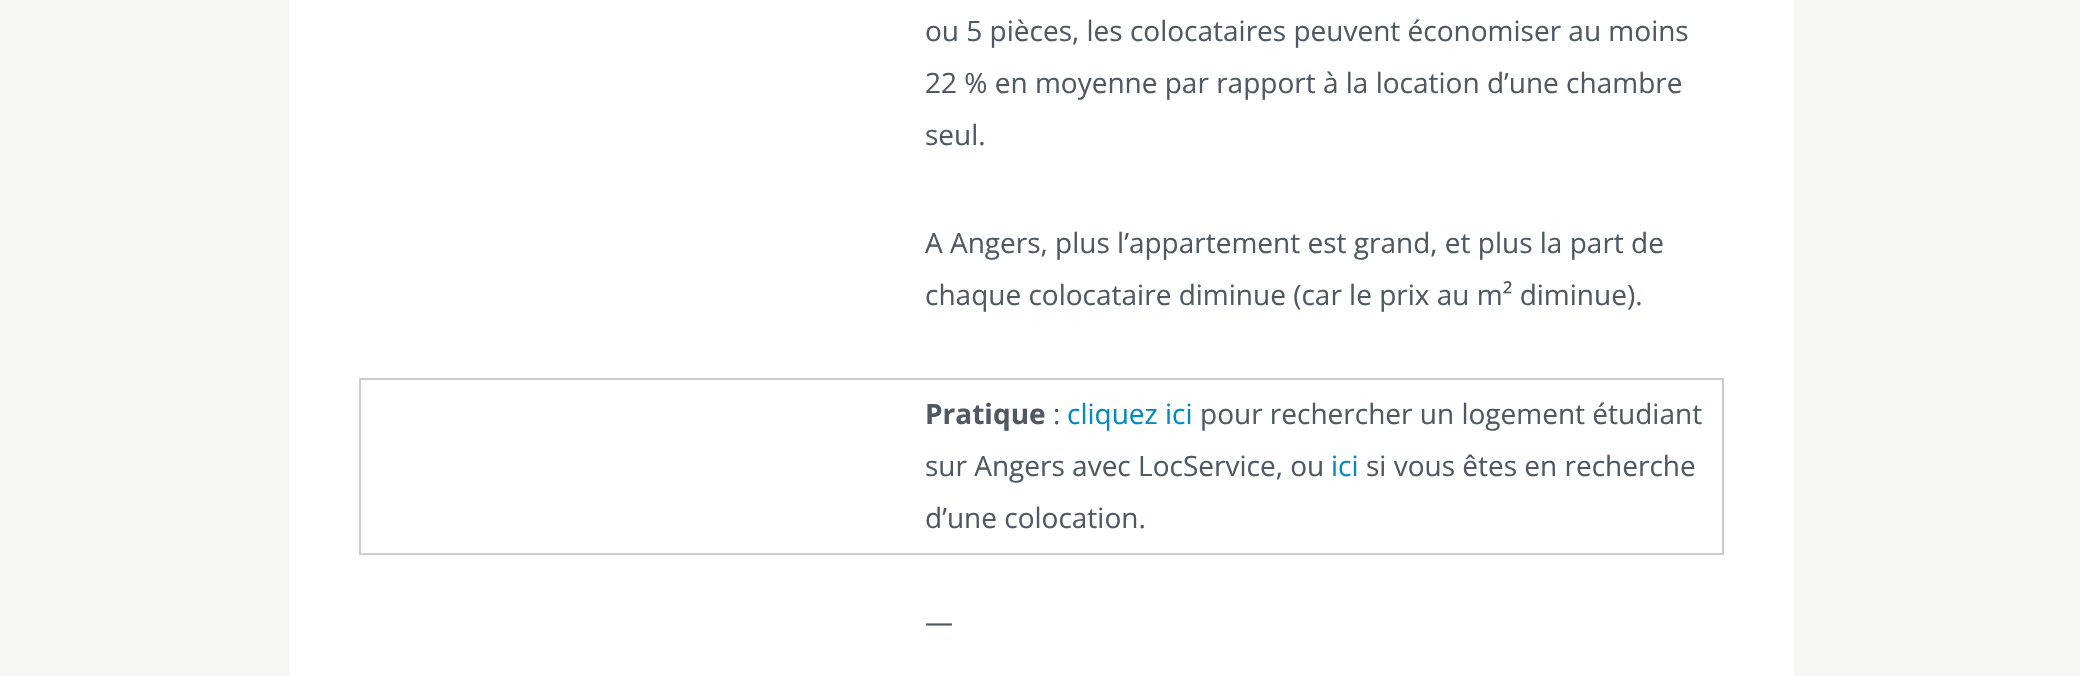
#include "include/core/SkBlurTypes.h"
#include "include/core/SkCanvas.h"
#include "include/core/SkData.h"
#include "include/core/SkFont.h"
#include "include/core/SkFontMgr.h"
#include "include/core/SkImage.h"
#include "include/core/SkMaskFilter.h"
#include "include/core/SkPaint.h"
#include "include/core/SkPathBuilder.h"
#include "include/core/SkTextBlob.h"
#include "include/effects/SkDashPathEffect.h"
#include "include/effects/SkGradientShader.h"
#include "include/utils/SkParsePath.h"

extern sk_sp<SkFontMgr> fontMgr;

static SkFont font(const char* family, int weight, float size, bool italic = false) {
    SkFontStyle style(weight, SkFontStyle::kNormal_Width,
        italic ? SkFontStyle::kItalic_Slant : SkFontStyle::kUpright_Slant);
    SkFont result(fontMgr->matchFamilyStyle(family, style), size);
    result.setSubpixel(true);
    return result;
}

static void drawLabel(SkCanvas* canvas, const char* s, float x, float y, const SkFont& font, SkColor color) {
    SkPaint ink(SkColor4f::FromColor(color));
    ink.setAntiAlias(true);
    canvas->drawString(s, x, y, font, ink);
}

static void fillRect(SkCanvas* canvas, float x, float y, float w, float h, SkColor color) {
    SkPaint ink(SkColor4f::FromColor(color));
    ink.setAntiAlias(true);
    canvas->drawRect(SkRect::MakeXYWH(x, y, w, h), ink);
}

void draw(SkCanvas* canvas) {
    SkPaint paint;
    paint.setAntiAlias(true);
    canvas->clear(0xFFF6F6F4);
    fillRect(canvas, 289, 0, 1505, 676, 0xFFFFFFFF);
    SkFont font1 = font("Open Sans", 400, 28);
    drawLabel(canvas, "ou 5 pièces, les colocataires peuvent économiser au moins", 925, 41, font1, 0xFF4E5964);
    drawLabel(canvas, "22 % en moyenne par rapport à la location d’une chambre", 925, 93, font1, 0xFF4E5964);
    drawLabel(canvas, "seul.", 925, 145, font1, 0xFF4E5964);
    drawLabel(canvas, "A Angers, plus l’appartement est grand, et plus la part de", 925, 253, font1, 0xFF4E5964);
    drawLabel(canvas, "chaque colocataire diminue (car le prix au m² diminue).", 925, 305, font1, 0xFF4E5964);
    paint.setStroke(true);
    paint.setStrokeWidth(2);
    paint.setColor(0xFFCCCCCC);
    canvas->drawRect(SkRect::MakeXYWH(360, 379, 1363, 175), paint);
    SkFont font2 = font("Open Sans", 700, 28);
    drawLabel(canvas, "Pratique", 925, 424, font2, 0xFF4E5964);
    drawLabel(canvas, ":", 1053, 424, font1, 0xFF4E5964);
    drawLabel(canvas, "cliquez ici", 1067, 424, font1, 0xFF008AC1);
    drawLabel(canvas, "pour rechercher un logement étudiant", 1200, 424, font1, 0xFF4E5964);
    drawLabel(canvas, "sur Angers avec LocService, ou", 925, 476, font1, 0xFF4E5964);
    drawLabel(canvas, "ici", 1331, 476, font1, 0xFF008AC1);
    drawLabel(canvas, "si vous êtes en recherche", 1366, 476, font1, 0xFF4E5964);
    drawLabel(canvas, "d’une colocation.", 925, 528, font1, 0xFF4E5964);
    drawLabel(canvas, "—", 925, 632, font1, 0xFF4E5964);
}
